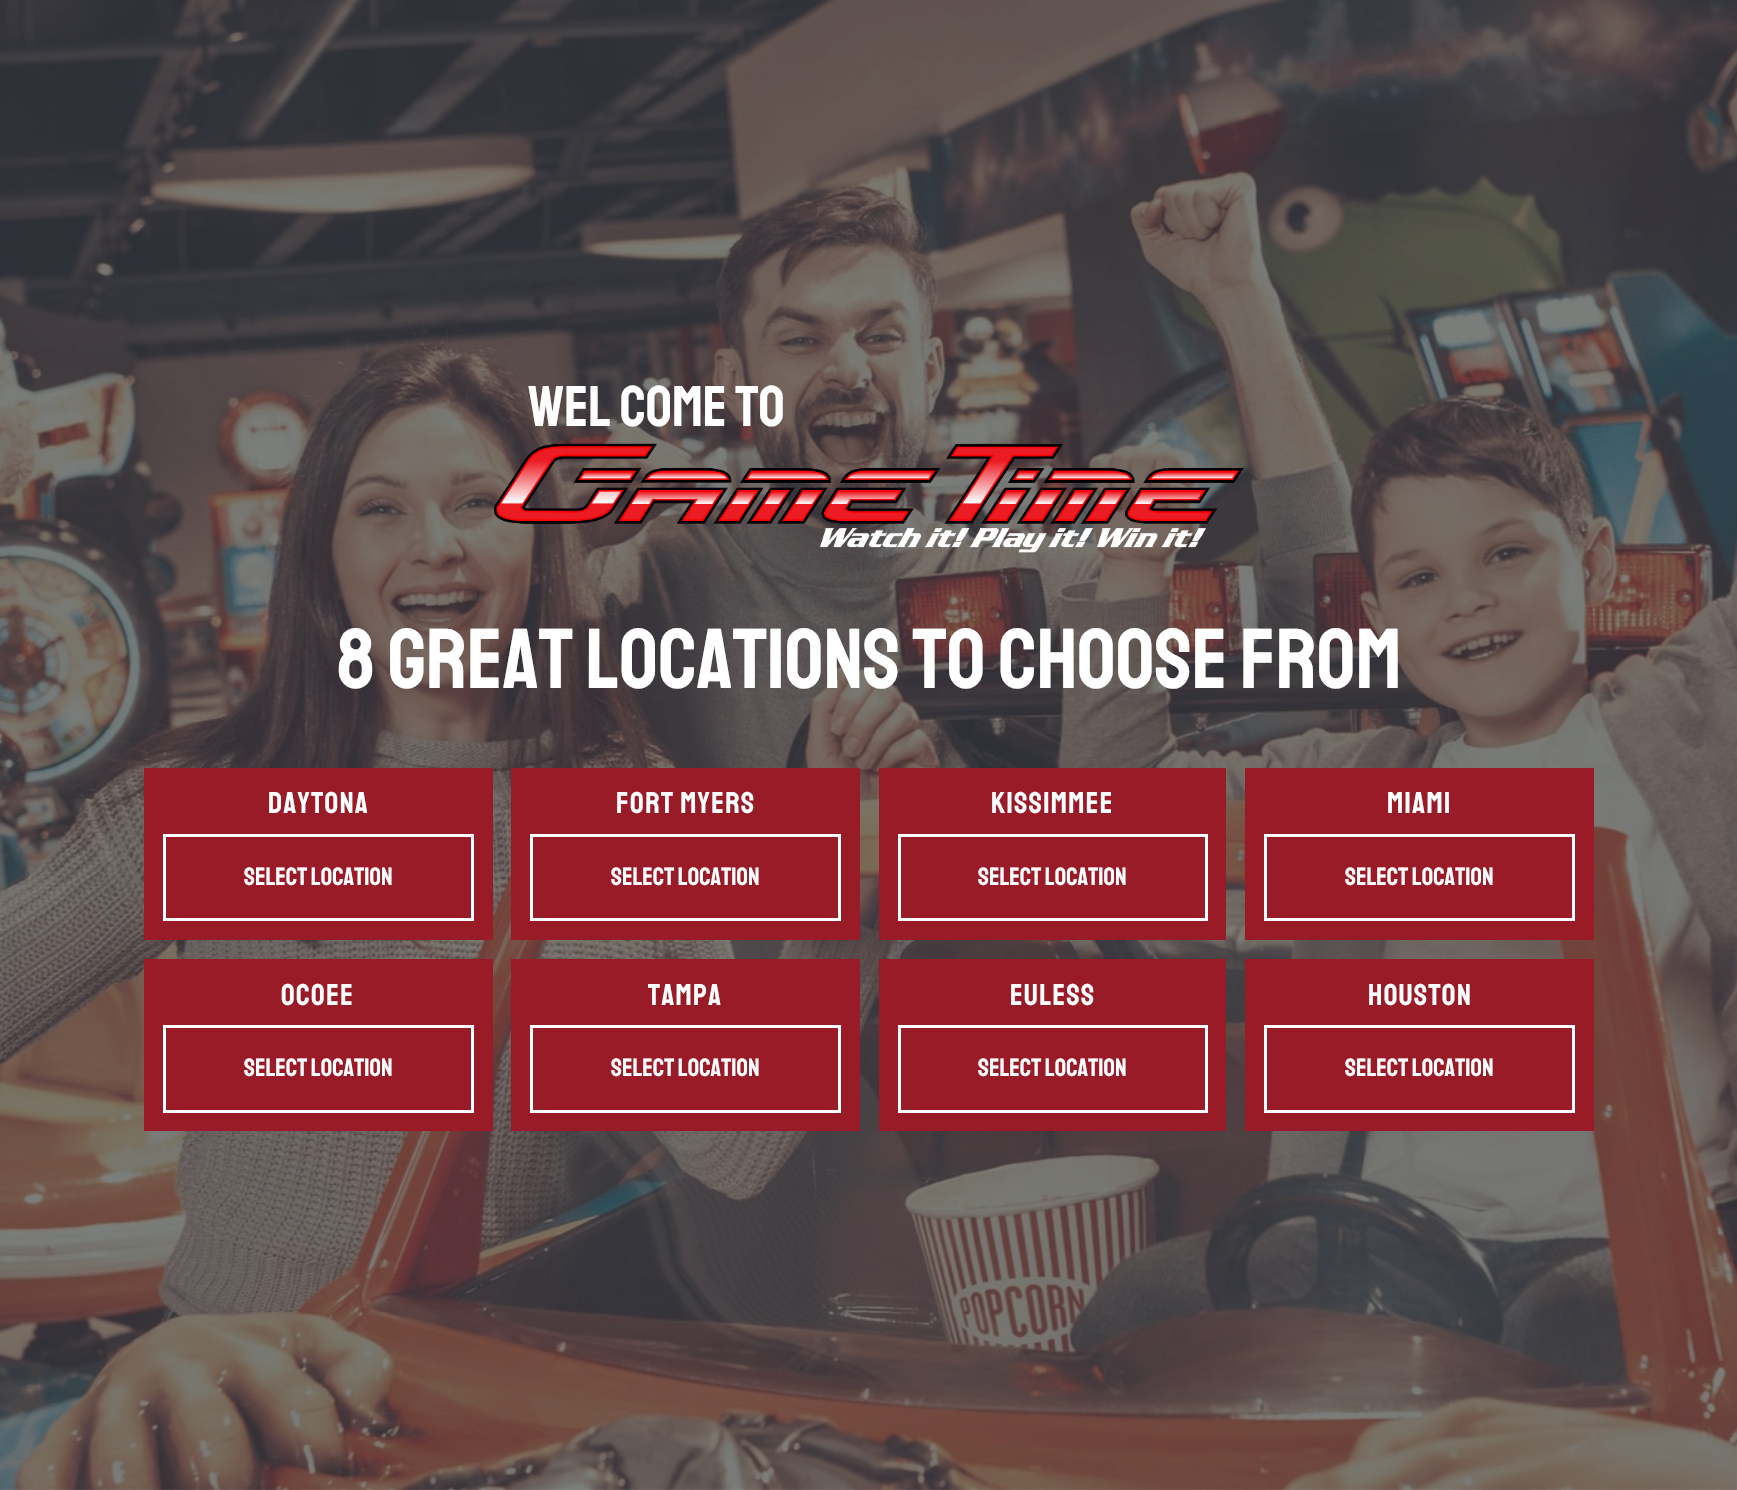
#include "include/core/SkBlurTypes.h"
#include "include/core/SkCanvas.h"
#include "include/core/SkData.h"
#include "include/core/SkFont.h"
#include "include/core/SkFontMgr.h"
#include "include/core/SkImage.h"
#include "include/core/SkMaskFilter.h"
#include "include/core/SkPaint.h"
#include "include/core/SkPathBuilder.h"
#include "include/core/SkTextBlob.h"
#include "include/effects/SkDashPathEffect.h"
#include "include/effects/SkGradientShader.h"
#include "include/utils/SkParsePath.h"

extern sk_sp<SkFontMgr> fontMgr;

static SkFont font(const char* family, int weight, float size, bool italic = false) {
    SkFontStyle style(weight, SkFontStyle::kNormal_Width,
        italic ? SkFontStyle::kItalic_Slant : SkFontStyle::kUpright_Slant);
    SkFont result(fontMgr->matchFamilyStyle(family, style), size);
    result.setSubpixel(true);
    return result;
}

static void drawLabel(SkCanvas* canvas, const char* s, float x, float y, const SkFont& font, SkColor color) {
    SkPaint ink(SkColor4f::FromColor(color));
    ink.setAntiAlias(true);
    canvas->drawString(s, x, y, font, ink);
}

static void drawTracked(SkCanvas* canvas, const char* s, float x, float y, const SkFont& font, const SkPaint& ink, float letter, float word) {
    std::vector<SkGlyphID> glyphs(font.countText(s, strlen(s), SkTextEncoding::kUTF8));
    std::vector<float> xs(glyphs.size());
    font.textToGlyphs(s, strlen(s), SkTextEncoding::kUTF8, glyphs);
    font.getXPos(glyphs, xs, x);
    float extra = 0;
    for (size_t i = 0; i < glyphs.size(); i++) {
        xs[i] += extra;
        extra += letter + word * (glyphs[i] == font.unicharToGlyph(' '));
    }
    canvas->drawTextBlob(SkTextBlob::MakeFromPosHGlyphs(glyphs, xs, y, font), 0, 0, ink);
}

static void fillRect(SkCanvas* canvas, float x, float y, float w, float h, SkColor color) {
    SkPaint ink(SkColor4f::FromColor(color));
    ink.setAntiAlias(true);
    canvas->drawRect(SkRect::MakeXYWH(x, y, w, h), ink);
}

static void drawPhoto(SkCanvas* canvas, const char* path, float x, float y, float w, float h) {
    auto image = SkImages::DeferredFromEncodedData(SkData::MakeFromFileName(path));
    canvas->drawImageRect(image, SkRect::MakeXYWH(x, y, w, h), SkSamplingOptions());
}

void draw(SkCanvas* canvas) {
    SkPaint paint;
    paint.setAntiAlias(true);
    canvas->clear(0xFFFFFFFF);
    drawPhoto(canvas, "assets/img1.png", 0, 0, 1737, 1490);
    SkFont font1 = font("Staatliches", 400, 57.5f);
    drawLabel(canvas, "WEL COME TO", 528, 426, font1, 0xFFFFFFFF);
    drawPhoto(canvas, "assets/img2.png", 494, 443, 750, 110);
    SkFont font2 = font("Staatliches", 400, 85);
    drawLabel(canvas, "8 GREAT LOCATIONS TO CHOOSE FROM", 337, 688, font2, 0xFFFFFFFF);
    fillRect(canvas, 144, 768, 349, 172, 0xFF9A1B28);
    SkFont font3 = font("Staatliches", 400, 30);
    paint.setColor(0xFFFFFFFF);
    drawTracked(canvas, "DAYTONA", 268, 813, font3, paint, 1.4f, 0);
    paint.setStroke(true);
    paint.setStrokeWidth(3);
    canvas->drawRect(SkRect::MakeXYWH(164.5f, 835.5f, 308, 84), paint);
    SkFont font4 = font("Staatliches", 400, 25);
    drawLabel(canvas, "Select Location", 244, 885, font4, 0xFFFFFFFF);
    fillRect(canvas, 511, 768, 349, 172, 0xFF9A1B28);
    paint.setStroke(false);
    drawTracked(canvas, "FORT MYERS", 616, 813, font3, paint, 1.4f, 0);
    paint.setStroke(true);
    canvas->drawRect(SkRect::MakeXYWH(531.5f, 835.5f, 308, 84), paint);
    drawLabel(canvas, "Select Location", 611, 885, font4, 0xFFFFFFFF);
    fillRect(canvas, 879, 768, 347, 172, 0xFF9A1B28);
    paint.setStroke(false);
    drawTracked(canvas, "KISSIMMEE", 991, 813, font3, paint, 1.4f, 0);
    paint.setStroke(true);
    canvas->drawRect(SkRect::MakeXYWH(899.5f, 835.5f, 307, 84), paint);
    drawLabel(canvas, "Select Location", 978, 885, font4, 0xFFFFFFFF);
    fillRect(canvas, 1245, 768, 349, 172, 0xFF9A1B28);
    paint.setStroke(false);
    drawTracked(canvas, "MIAMI", 1387, 813, font3, paint, 1.4f, 0);
    paint.setStroke(true);
    canvas->drawRect(SkRect::MakeXYWH(1265.5f, 835.5f, 308, 84), paint);
    drawLabel(canvas, "Select Location", 1345, 885, font4, 0xFFFFFFFF);
    fillRect(canvas, 144, 959, 349, 172, 0xFF9A1B28);
    paint.setStroke(false);
    drawTracked(canvas, "OCOEE", 281, 1005, font3, paint, 1.4f, 0);
    paint.setStroke(true);
    canvas->drawRect(SkRect::MakeXYWH(164.5f, 1026.5f, 308, 85), paint);
    drawLabel(canvas, "Select Location", 244, 1076, font4, 0xFFFFFFFF);
    fillRect(canvas, 511, 959, 349, 172, 0xFF9A1B28);
    paint.setStroke(false);
    drawTracked(canvas, "TAMPA", 648, 1005, font3, paint, 1.4f, 0);
    paint.setStroke(true);
    canvas->drawRect(SkRect::MakeXYWH(531.5f, 1026.5f, 308, 85), paint);
    drawLabel(canvas, "Select Location", 611, 1076, font4, 0xFFFFFFFF);
    fillRect(canvas, 879, 959, 347, 172, 0xFF9A1B28);
    paint.setStroke(false);
    drawTracked(canvas, "EULESS", 1010, 1005, font3, paint, 1.4f, 0);
    paint.setStroke(true);
    canvas->drawRect(SkRect::MakeXYWH(899.5f, 1026.5f, 307, 85), paint);
    drawLabel(canvas, "Select Location", 978, 1076, font4, 0xFFFFFFFF);
    fillRect(canvas, 1245, 959, 349, 172, 0xFF9A1B28);
    paint.setStroke(false);
    drawTracked(canvas, "HOUSTON", 1368, 1005, font3, paint, 1.4f, 0);
    paint.setStroke(true);
    canvas->drawRect(SkRect::MakeXYWH(1265.5f, 1026.5f, 308, 85), paint);
    drawLabel(canvas, "Select Location", 1345, 1076, font4, 0xFFFFFFFF);
}
